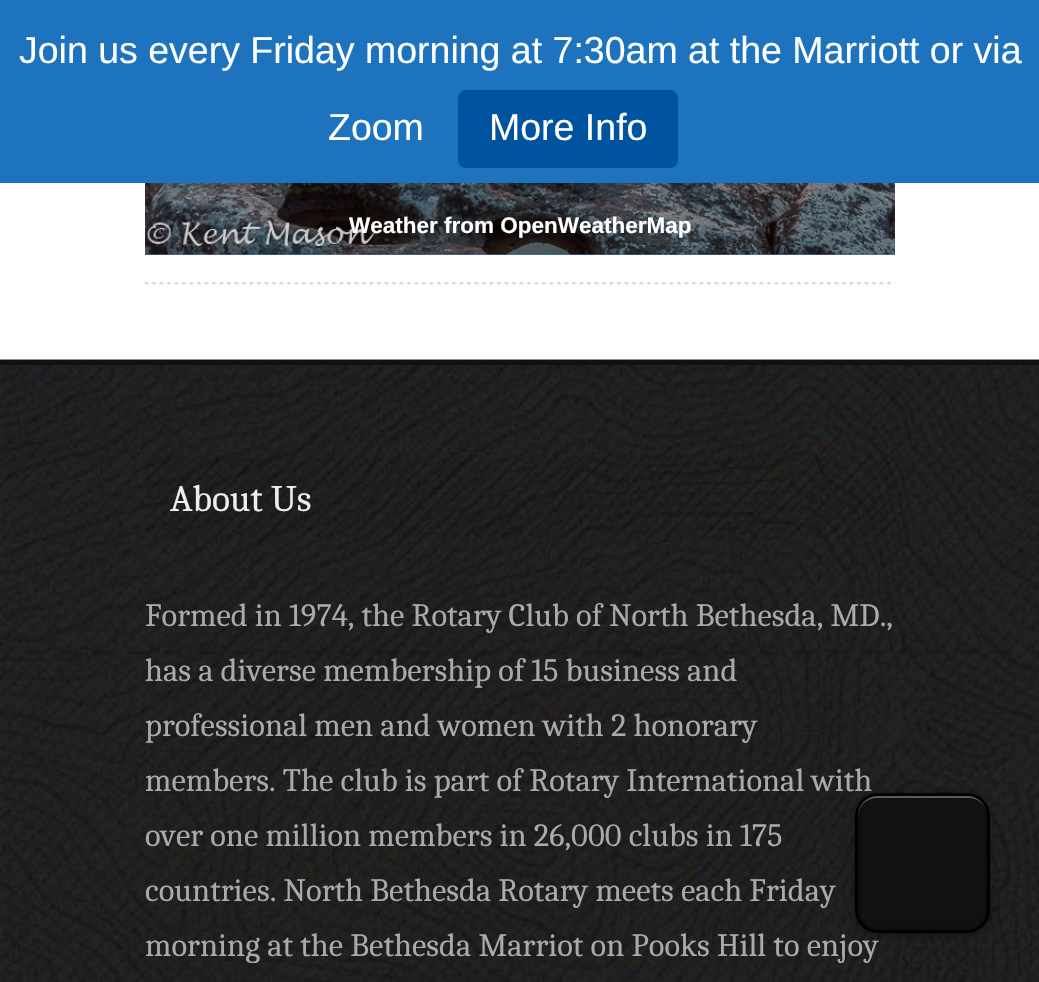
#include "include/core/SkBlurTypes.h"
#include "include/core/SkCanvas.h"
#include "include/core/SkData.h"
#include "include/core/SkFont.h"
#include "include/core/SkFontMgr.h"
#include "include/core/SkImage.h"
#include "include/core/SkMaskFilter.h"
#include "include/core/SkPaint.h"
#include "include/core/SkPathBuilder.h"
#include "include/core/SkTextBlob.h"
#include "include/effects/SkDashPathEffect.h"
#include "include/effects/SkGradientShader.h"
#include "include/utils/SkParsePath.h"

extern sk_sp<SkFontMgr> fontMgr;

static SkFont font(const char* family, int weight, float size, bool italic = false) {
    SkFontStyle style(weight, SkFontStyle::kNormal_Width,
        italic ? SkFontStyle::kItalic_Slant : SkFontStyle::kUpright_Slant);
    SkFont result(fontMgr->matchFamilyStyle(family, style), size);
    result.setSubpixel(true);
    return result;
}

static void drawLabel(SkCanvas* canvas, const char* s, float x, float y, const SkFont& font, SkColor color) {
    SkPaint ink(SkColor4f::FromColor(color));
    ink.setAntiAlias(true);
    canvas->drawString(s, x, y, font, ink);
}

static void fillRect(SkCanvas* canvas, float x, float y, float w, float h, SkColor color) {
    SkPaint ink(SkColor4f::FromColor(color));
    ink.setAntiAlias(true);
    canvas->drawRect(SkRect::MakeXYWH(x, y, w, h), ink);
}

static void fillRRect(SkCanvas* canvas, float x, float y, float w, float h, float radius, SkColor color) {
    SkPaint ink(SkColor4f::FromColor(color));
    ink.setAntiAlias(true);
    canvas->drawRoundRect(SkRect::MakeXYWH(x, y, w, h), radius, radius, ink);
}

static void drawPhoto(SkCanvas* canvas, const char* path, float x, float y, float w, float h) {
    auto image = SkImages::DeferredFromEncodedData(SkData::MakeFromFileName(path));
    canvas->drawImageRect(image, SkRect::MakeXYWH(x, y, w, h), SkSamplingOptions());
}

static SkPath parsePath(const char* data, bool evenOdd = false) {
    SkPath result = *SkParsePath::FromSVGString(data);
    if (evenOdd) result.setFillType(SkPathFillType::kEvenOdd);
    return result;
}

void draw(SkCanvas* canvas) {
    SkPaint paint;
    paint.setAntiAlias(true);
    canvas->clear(0xFFFFFFFF);
    fillRect(canvas, 0, 0, 1039, 183, 0xFF1E73BE);
    SkFont font1 = font("Liberation Sans", 400, 37.5f);
    drawLabel(canvas, "Join us every Friday morning at 7:30am at the Marriott or via", 19, 63, font1, 0xFFFFFFFF);
    drawLabel(canvas, "Zoom", 328, 140, font1, 0xFFFFFFFF);
    fillRRect(canvas, 458, 90, 220, 78, 8, 0xFF00549F);
    drawLabel(canvas, "More Info", 489, 140, font1, 0xFFFFFFFF);
    fillRect(canvas, 145, 254, 750, 1, 0xFF4E7CB3);
    drawPhoto(canvas, "assets/img1.png", 145, 183, 750, 72);
    SkFont font2 = font("Liberation Sans", 700, 22.5f);
    drawLabel(canvas, "Weather from OpenWeatherMap", 349, 233, font2, 0xFFFFFFFF);
    drawPhoto(canvas, "assets/img2.png", 145, 282, 750, 3);
    drawPhoto(canvas, "assets/img3.png", 0, 359, 1039, 623);
    fillRect(canvas, 0, 360, 1039, 5, 0xFF111111);
    drawPhoto(canvas, "assets/img4.png", 145, 457, 750, 80);
    SkFont font3 = font("Caladea", 400, 37.5f);
    drawLabel(canvas, "About Us", 170, 511, font3, 0xFFEEEEEE);
    SkFont font4 = font("Caladea", 400, 32.5f);
    drawLabel(canvas, "Formed in 1974, the Rotary Club of North Bethesda, MD.,", 145, 626, font4, 0xFFAAAAAA);
    drawLabel(canvas, "has a diverse membership of 15 business and", 145, 681, font4, 0xFFAAAAAA);
    drawLabel(canvas, "professional men and women with 2 honorary", 145, 736, font4, 0xFFAAAAAA);
    drawLabel(canvas, "members. The club is part of Rotary International with", 145, 791, font4, 0xFFAAAAAA);
    drawLabel(canvas, "over one million members in 26,000 clubs in 175", 145, 846, font4, 0xFFAAAAAA);
    drawLabel(canvas, "countries. North Bethesda Rotary meets each Friday", 145, 901, font4, 0xFFAAAAAA);
    drawLabel(canvas, "morning at the Bethesda Marriot on Pooks Hill to enjoy", 145, 956, font4, 0xFFAAAAAA);
    paint.setColor(0x66000000);
    paint.setMaskFilter(SkMaskFilter::MakeBlur(kNormal_SkBlurStyle, 4));
    canvas->drawRoundRect(SkRect::MakeXYWH(855, 795, 135, 140), 23, 23, paint);
    paint.setMaskFilter(nullptr);
    fillRRect(canvas, 858, 795, 130, 135, 20, 0xFF111111);
    paint.setColor(0x66FFFFFF);
    canvas->drawPath(parsePath("M878 798H968C979 798 988 806 988 818V815C988 804 979 795 968 795H878C867 795 858 804 858 815V818C858 806 866 798 878 798Z"), paint);
    paint.setStroke(true);
    paint.setStrokeWidth(3);
    paint.setColor(0x33000000);
    canvas->drawRoundRect(SkRect::MakeXYWH(859.5f, 796.5f, 127, 132), 18.5f, 18.5f, paint);
    paint.setColor(0xFF000000);
    canvas->drawRoundRect(SkRect::MakeXYWH(856.5f, 794.5f, 132, 137), 21.5f, 21.5f, paint);
}
